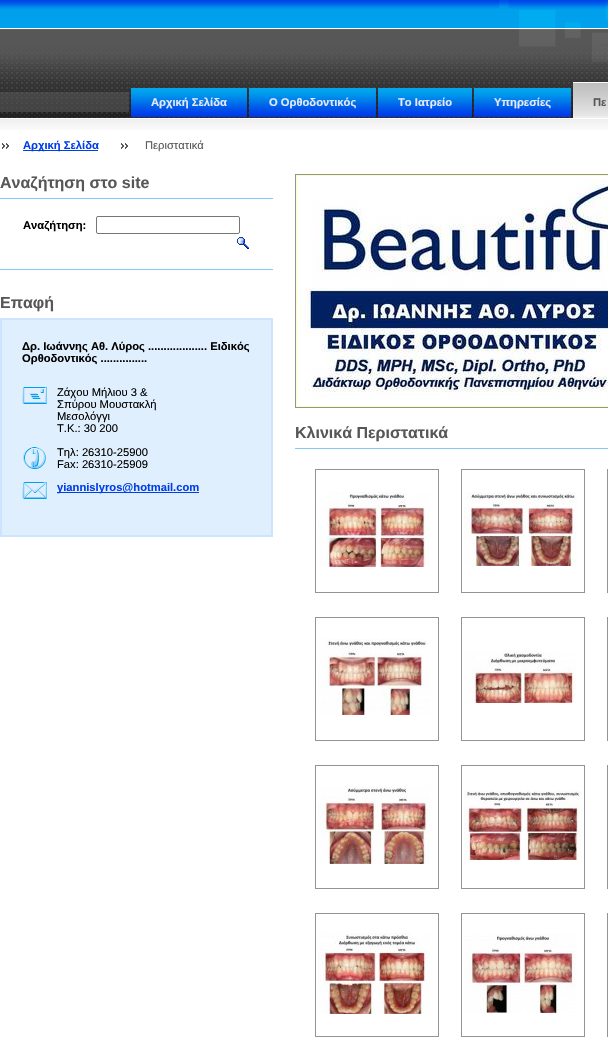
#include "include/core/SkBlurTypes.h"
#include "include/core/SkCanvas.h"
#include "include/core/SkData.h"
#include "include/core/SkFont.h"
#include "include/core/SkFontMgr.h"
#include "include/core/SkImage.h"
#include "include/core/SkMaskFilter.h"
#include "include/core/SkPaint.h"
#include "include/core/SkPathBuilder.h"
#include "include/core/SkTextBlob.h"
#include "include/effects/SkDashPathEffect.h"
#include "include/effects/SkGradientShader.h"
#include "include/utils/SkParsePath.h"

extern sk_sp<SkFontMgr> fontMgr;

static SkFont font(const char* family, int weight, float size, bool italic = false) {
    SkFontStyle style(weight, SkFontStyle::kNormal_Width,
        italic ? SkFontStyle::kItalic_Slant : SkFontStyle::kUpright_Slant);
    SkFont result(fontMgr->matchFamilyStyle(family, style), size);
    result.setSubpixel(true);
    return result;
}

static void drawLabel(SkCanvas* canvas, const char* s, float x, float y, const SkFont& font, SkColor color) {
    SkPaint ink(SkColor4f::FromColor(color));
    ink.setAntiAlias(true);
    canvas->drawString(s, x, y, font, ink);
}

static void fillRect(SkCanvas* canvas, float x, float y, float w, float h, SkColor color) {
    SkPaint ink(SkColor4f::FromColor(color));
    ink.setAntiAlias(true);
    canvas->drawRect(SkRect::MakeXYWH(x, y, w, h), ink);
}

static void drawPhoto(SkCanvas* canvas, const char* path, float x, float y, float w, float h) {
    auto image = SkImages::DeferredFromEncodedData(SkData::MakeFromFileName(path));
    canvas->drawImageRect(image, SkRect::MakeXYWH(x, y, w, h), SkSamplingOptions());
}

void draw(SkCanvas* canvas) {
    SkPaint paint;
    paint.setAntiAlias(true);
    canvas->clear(0xFFFFFFFF);
    drawPhoto(canvas, "assets/img1.png", 0, 0, 608, 118);
    drawPhoto(canvas, "assets/img8.png", 0, 118, 608, 12);
    drawPhoto(canvas, "assets/img2.png", 129, 82, 479, 37);
    drawPhoto(canvas, "assets/img3.png", 131, 88, 116, 29);
    SkFont font1 = font("Liberation Sans", 700, 11.2f);
    drawLabel(canvas, "Αρχική Σελίδα", 151, 106, font1, 0xFFE6E8FA);
    drawPhoto(canvas, "assets/img4.png", 249, 88, 127, 29);
    drawLabel(canvas, "Ο Ορθοδοντικός", 269, 106, font1, 0xFFE6E8FA);
    drawPhoto(canvas, "assets/img5.png", 378, 88, 94, 29);
    drawLabel(canvas, "Το Ιατρείο", 398, 106, font1, 0xFFE6E8FA);
    drawPhoto(canvas, "assets/img6.png", 474, 88, 97, 29);
    drawLabel(canvas, "Υπηρεσίες", 494, 106, font1, 0xFFE6E8FA);
    fillRect(canvas, 573, 116, 35, 2, 0xFFEDEDED);
    drawPhoto(canvas, "assets/img7.png", 573, 82, 35, 34);
    drawLabel(canvas, "Πε", 593, 106, font1, 0xFF575757);
    drawPhoto(canvas, "assets/img9.png", 2, 143, 7, 6);
    fillRect(canvas, 23, 150, 75, 1, 0xFF003EE8);
    drawLabel(canvas, "Αρχική Σελίδα", 23, 149, font1, 0xFF003EE8);
    drawPhoto(canvas, "assets/img9.png", 121, 143, 7, 6);
    SkFont font2 = font("Liberation Sans", 400, 11.2f);
    drawLabel(canvas, "Περιστατικά", 145, 149, font2, 0xFF575757);
    SkFont font3 = font("Liberation Sans", 700, 16);
    drawLabel(canvas, "Αναζήτηση στο site", 0, 188, font3, 0xFF575757);
    fillRect(canvas, 0, 198, 273, 1, 0xFF83CAF4);
    fillRect(canvas, 0, 269, 273, 1, 0xFF83CAF4);
    drawLabel(canvas, "Αναζήτηση:", 23, 229, font1, 0xFF000000);
    paint.setStroke(true);
    paint.setStrokeWidth(1);
    paint.setColor(0xFF767676);
    canvas->drawRoundRect(SkRect::MakeXYWH(96.5f, 216.5f, 143, 17), 1.5f, 1.5f, paint);
    drawPhoto(canvas, "assets/img10.png", 237, 237, 12, 12);
    drawLabel(canvas, "Επαφή", 0, 308, font3, 0xFF575757);
    paint.setStroke(false);
    paint.setColor(0xFFE0EFFE);
    canvas->drawRect(SkRect::MakeXYWH(1, 319, 271, 217), paint);
    paint.setStroke(true);
    paint.setStrokeWidth(2);
    paint.setColor(0xFFCCE4FD);
    canvas->drawRect(SkRect::MakeXYWH(1, 319, 271, 217), paint);
    drawLabel(canvas, "Δρ. Ιωάννης Αθ. Λύρος ................... Ειδικός", 22, 350, font1, 0xFF000000);
    drawLabel(canvas, "Ορθοδοντικός ...............", 22, 362, font1, 0xFF000000);
    drawPhoto(canvas, "assets/img11.png", 22, 387, 25, 17);
    drawLabel(canvas, "Ζάχου Μήλιου 3 &", 57, 396, font2, 0xFF000000);
    drawLabel(canvas, "Σπύρου Μουστακλή", 57, 408, font2, 0xFF000000);
    drawLabel(canvas, "Μεσολόγγι", 57, 420, font2, 0xFF000000);
    drawLabel(canvas, "T.K.: 30 200", 57, 432, font2, 0xFF000000);
    drawPhoto(canvas, "assets/img12.png", 23, 447, 23, 22);
    drawLabel(canvas, "Τηλ: 26310-25900", 57, 456, font2, 0xFF000000);
    drawLabel(canvas, "Fax: 26310-25909", 57, 468, font2, 0xFF000000);
    drawPhoto(canvas, "assets/img13.png", 22, 482, 25, 17);
    fillRect(canvas, 57, 492, 142, 1, 0xFF003EE8);
    drawLabel(canvas, "yiannislyros@hotmail.com", 57, 491, font1, 0xFF003EE8);
    paint.setStrokeWidth(1);
    paint.setColor(0xFF939393);
    canvas->drawRect(SkRect::MakeXYWH(295.5f, 174.5f, 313, 233), paint);
    paint.setColor(0xFFFFFFBE);
    canvas->drawRect(SkRect::MakeXYWH(296.5f, 175.5f, 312, 231), paint);
    drawPhoto(canvas, "assets/img14.png", 297, 179, 311, 221);
    drawLabel(canvas, "Κλινικά Περιστατικά", 295, 438, font3, 0xFF575757);
    fillRect(canvas, 295, 448, 313, 1, 0xFF83CAF4);
    paint.setColor(0xFF949496);
    canvas->drawRect(SkRect::MakeXYWH(315.5f, 469.5f, 123, 123), paint);
    drawPhoto(canvas, "assets/img15.png", 318, 492, 112, 75);
    canvas->drawRect(SkRect::MakeXYWH(461.5f, 469.5f, 123, 123), paint);
    drawPhoto(canvas, "assets/img16.png", 464, 492, 113, 74);
    canvas->drawRect(SkRect::MakeXYWH(607.5f, 469.5f, 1, 123), paint);
    canvas->drawRect(SkRect::MakeXYWH(315.5f, 617.5f, 123, 123), paint);
    drawPhoto(canvas, "assets/img17.png", 318, 639, 112, 76);
    canvas->drawRect(SkRect::MakeXYWH(461.5f, 617.5f, 123, 123), paint);
    drawPhoto(canvas, "assets/img18.png", 464, 651, 112, 52);
    canvas->drawRect(SkRect::MakeXYWH(607.5f, 617.5f, 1, 123), paint);
    canvas->drawRect(SkRect::MakeXYWH(315.5f, 765.5f, 123, 123), paint);
    drawPhoto(canvas, "assets/img19.png", 318, 786, 112, 78);
    canvas->drawRect(SkRect::MakeXYWH(461.5f, 765.5f, 123, 123), paint);
    drawPhoto(canvas, "assets/img20.png", 464, 790, 118, 70);
    canvas->drawRect(SkRect::MakeXYWH(607.5f, 765.5f, 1, 123), paint);
    canvas->drawRect(SkRect::MakeXYWH(315.5f, 913.5f, 123, 123), paint);
    drawPhoto(canvas, "assets/img21.png", 318, 933, 112, 81);
    canvas->drawRect(SkRect::MakeXYWH(461.5f, 913.5f, 123, 123), paint);
    drawPhoto(canvas, "assets/img22.png", 464, 934, 113, 79);
    canvas->drawRect(SkRect::MakeXYWH(607.5f, 913.5f, 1, 123), paint);
}
